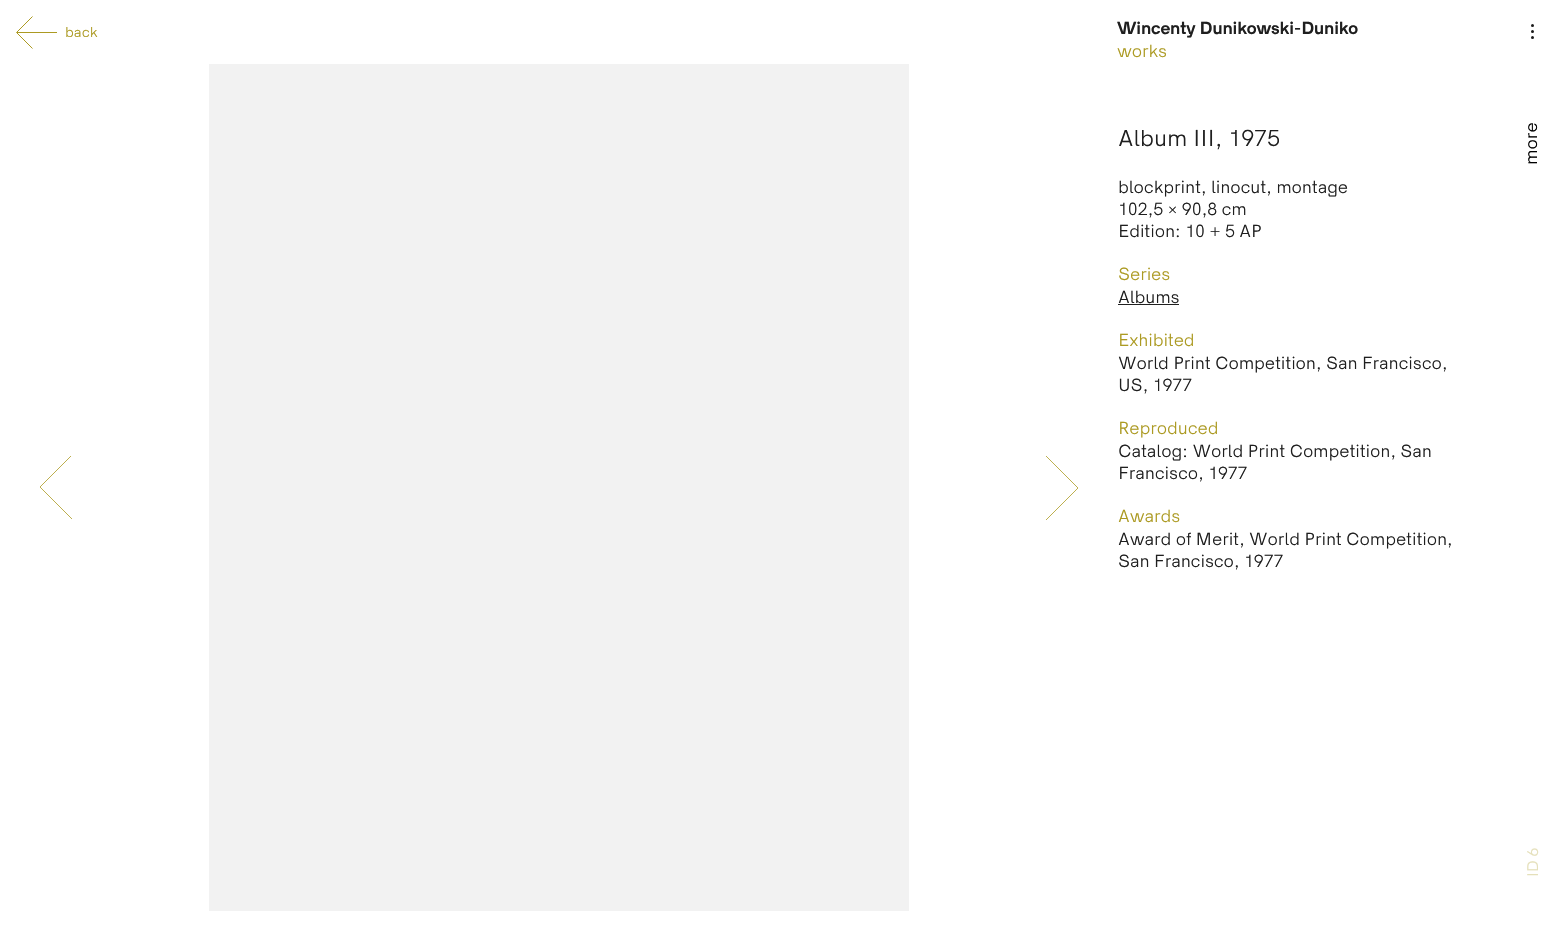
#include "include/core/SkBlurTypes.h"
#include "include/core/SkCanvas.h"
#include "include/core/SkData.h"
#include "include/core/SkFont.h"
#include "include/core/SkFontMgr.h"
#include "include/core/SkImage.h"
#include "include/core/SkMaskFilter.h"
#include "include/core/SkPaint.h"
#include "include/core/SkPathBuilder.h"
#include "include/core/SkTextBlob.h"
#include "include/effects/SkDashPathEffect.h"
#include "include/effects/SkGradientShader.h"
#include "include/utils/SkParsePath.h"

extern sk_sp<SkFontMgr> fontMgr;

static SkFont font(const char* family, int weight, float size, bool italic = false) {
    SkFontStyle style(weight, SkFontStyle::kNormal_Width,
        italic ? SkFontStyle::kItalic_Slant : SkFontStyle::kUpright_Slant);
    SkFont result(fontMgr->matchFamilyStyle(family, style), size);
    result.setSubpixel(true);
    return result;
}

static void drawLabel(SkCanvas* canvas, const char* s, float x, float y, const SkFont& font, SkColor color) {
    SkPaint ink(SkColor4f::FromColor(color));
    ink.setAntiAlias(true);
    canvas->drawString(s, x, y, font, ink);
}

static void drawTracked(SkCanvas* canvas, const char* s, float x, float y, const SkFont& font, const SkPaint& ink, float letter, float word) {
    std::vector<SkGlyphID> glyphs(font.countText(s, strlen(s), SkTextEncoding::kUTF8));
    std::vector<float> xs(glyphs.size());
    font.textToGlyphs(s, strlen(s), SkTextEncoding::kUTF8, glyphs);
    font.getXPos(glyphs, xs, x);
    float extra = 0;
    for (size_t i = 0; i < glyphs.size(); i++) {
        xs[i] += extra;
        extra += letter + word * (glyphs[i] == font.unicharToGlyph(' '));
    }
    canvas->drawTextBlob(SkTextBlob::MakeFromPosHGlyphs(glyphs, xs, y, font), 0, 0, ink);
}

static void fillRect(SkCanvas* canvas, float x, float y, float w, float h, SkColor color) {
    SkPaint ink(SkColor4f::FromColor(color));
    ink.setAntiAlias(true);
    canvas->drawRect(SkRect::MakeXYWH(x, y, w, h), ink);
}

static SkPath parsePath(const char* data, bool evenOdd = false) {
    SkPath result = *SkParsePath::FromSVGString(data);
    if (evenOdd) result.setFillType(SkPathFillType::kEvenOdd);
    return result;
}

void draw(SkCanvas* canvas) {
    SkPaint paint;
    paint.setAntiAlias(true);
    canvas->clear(0xFFFFFFFF);
    paint.setStroke(true);
    paint.setStrokeWidth(1);
    paint.setColor(0xFFAC9A22);
    canvas->drawPath(parsePath("M32.5 16.5L16.5 32.5L32.5 48.5"), paint);
    fillRect(canvas, 17, 32, 40, 1, 0xFFAC9A22);
    SkFont font1 = font("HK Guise", 400, 13);
    drawLabel(canvas, "back", 65, 37, font1, 0xFFAC9A22);
    SkFont font2 = font("HK Guise", 700, 16);
    paint.setStroke(false);
    paint.setColor(0xFF1F1F1F);
    drawTracked(canvas, "Wincenty Dunikowski-Duniko", 1117, 34, font2, paint, -0.15f, 0);
    SkFont font3 = font("HK Guise", 400, 16);
    paint.setColor(0xFFAC9A22);
    drawTracked(canvas, "works", 1117, 57, font3, paint, -0.15f, 0);
    paint.setColor(0xFF1A1A1A);
    canvas->drawCircle(1532.5f, 25.5f, 1.5f, paint);
    canvas->drawCircle(1532.5f, 31.5f, 1.5f, paint);
    canvas->drawCircle(1532.5f, 37.5f, 1.5f, paint);
    canvas->save();
    canvas->rotate(-90, 1537, 165);
    drawLabel(canvas, "more", 1537, 165, font3, 0xFF000000);
    canvas->restore();
    canvas->save();
    canvas->clipRect(SkRect::MakeXYWH(24, 456, 64, 64));
    paint.setStroke(true);
    paint.setStrokeWidth(0.8f);
    paint.setColor(0xFFAC9A22);
    canvas->drawPath(parsePath("M72 519L40 487L72 455"), paint);
    canvas->restore();
    fillRect(canvas, 209, 64, 700, 847, 0xFFF2F2F2);
    canvas->drawPath(parsePath("M1046 456L1078 488L1046 520"), paint);
    SkFont font4 = font("HK Guise", 400, 21);
    paint.setStroke(false);
    paint.setColor(0xFF1F1F1F);
    drawTracked(canvas, "Album III, 1975", 1118, 146, font4, paint, -0.15f, 0);
    drawTracked(canvas, "blockprint, linocut, montage", 1118, 193, font3, paint, -0.15f, 0);
    drawTracked(canvas, "102,5 × 90,8 cm", 1118, 215, font3, paint, -0.15f, 0);
    drawTracked(canvas, "Edition: 10 + 5 AP", 1118, 237, font3, paint, -0.15f, 0);
    paint.setColor(0xFFAC9A22);
    drawTracked(canvas, "Series", 1118, 280, font3, paint, -0.15f, 0);
    paint.setColor(0xFF1F1F1F);
    drawTracked(canvas, "Albums", 1118, 303, font3, paint, -0.15f, 0);
    fillRect(canvas, 1118, 304, 61, 1, 0xFF1F1F1F);
    paint.setColor(0xFFAC9A22);
    drawTracked(canvas, "Exhibited", 1118, 346, font3, paint, -0.15f, 0);
    paint.setColor(0xFF1F1F1F);
    drawTracked(canvas, "World Print Competition, San Francisco,", 1118, 369, font3, paint, -0.15f, 0);
    drawTracked(canvas, "US, 1977", 1118, 391, font3, paint, -0.15f, 0);
    paint.setColor(0xFFAC9A22);
    drawTracked(canvas, "Reproduced", 1118, 434, font3, paint, -0.15f, 0);
    paint.setColor(0xFF1F1F1F);
    drawTracked(canvas, "Catalog: World Print Competition, San", 1118, 457, font3, paint, -0.15f, 0);
    drawTracked(canvas, "Francisco, 1977", 1118, 479, font3, paint, -0.15f, 0);
    paint.setColor(0xFFAC9A22);
    drawTracked(canvas, "Awards", 1118, 522, font3, paint, -0.15f, 0);
    paint.setColor(0xFF1F1F1F);
    drawTracked(canvas, "Award of Merit, World Print Competition,", 1118, 545, font3, paint, -0.15f, 0);
    drawTracked(canvas, "San Francisco, 1977", 1118, 567, font3, paint, -0.15f, 0);
    SkFont font5 = font("HK Guise", 400, 14);
    paint.setColor(0xFFE5E0BA);
    canvas->save();
    canvas->rotate(-90, 1538, 877);
    drawTracked(canvas, "ID 6", 1538, 877, font5, paint, -0.15f, 0);
    canvas->restore();
}
